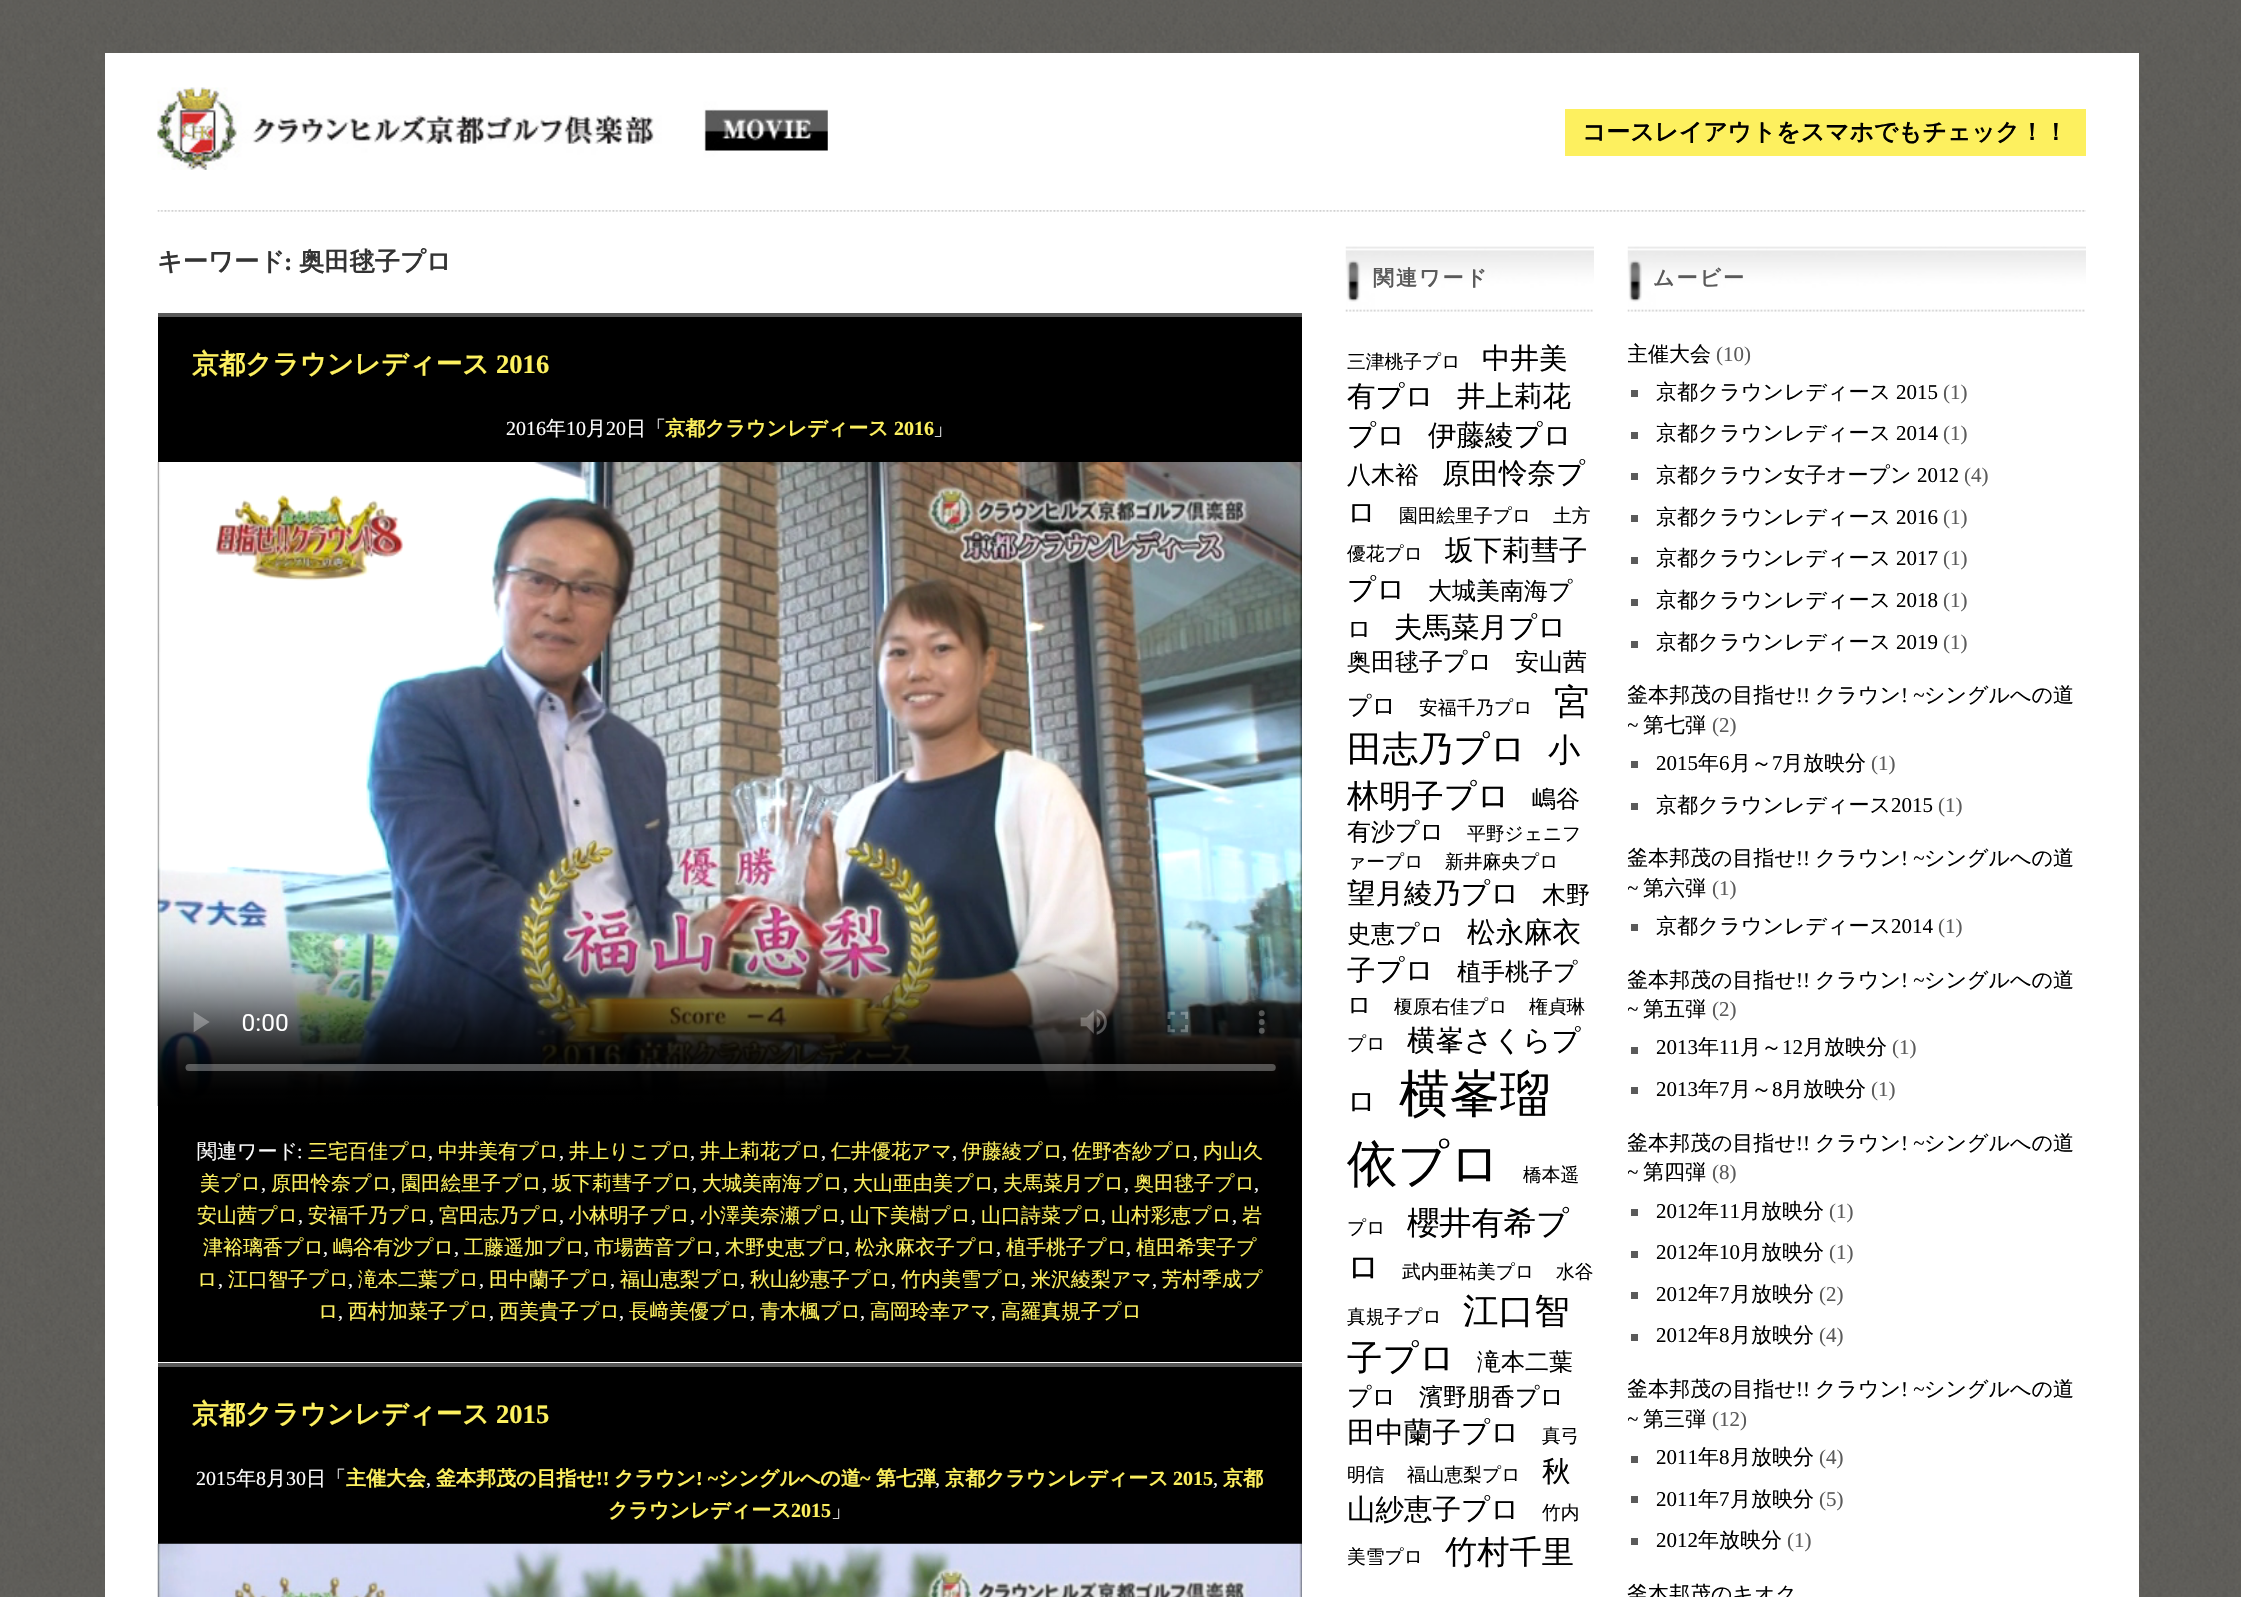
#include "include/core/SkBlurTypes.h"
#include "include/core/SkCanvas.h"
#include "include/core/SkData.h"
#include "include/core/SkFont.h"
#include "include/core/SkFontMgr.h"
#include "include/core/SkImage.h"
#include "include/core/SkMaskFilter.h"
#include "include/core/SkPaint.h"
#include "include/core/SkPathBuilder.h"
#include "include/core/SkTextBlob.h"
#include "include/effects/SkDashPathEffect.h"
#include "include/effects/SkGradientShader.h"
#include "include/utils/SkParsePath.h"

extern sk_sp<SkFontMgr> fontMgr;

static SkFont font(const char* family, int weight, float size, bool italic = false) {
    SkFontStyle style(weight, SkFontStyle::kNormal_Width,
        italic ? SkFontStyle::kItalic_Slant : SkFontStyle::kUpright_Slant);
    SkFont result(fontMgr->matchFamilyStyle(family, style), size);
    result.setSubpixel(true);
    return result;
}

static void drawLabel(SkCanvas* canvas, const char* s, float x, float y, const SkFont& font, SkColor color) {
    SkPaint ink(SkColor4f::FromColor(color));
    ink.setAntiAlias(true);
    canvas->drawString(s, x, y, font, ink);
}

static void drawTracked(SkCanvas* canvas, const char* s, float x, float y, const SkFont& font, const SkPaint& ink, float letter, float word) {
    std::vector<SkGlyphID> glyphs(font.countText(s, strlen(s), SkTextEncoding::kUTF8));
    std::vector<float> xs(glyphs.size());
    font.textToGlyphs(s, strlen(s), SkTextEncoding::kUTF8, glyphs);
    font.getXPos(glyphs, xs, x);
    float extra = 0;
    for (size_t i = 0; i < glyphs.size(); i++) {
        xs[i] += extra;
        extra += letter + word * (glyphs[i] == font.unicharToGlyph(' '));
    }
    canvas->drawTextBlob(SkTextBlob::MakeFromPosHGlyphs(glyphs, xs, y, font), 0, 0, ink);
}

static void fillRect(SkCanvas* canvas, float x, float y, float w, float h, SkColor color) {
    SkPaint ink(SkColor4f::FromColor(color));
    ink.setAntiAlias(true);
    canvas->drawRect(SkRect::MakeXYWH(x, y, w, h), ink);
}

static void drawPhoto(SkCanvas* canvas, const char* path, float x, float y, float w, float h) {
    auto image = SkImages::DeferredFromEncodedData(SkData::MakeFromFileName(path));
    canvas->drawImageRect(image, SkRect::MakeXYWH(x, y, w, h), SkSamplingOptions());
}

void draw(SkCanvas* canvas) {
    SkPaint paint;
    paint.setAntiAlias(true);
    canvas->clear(0xFFFFFFFF);
    drawPhoto(canvas, "assets/img1.png", 0, 0, 2241, 1597);
    fillRect(canvas, 105, 53, 2034, 1544, 0xFFFFFFFF);
    drawPhoto(canvas, "assets/img2.png", 157, 87, 671, 83);
    fillRect(canvas, 1565, 109, 521, 47, 0xFFFDF05F);
    SkFont font1 = font("WenQuanYi Zen Hei", 700, 23.8f);
    drawLabel(canvas, "コースレイアウトをスマホでもチェック！！", 1582, 140, font1, 0xFF000000);
    drawPhoto(canvas, "assets/img3.png", 157, 210, 1929, 2);
    fillRect(canvas, 158, 317, 1144, 1227, 0xFF000000);
    SkFont font2 = font("WenQuanYi Zen Hei", 700, 25.25f);
    drawLabel(canvas, "キーワード", 157, 270, font2, 0xFF333333);
    SkFont font3 = font("Liberation Serif", 700, 25.25f);
    drawLabel(canvas, ":", 284, 270, font3, 0xFF333333);
    drawLabel(canvas, "奥田毬子プロ", 299, 270, font2, 0xFF333333);
    fillRect(canvas, 158, 313, 1144, 4, 0xFF5A5A5A);
    fillRect(canvas, 158, 1362, 1144, 1, 0xFFFFFFFF);
    SkFont font4 = font("WenQuanYi Zen Hei", 700, 26.6f);
    drawLabel(canvas, "京都クラウンレディース", 192, 373, font4, 0xFFFDF05F);
    SkFont font5 = font("Liberation Serif", 700, 26.6f);
    drawLabel(canvas, "2016", 496, 373, font5, 0xFFFDF05F);
    SkFont font6 = font("Liberation Serif", 400, 20);
    drawLabel(canvas, "2016", 506, 435, font6, 0xFFFFFFFF);
    SkFont font7 = font("WenQuanYi Zen Hei", 500, 20);
    drawLabel(canvas, "年", 546, 435, font7, 0xFFFFFFFF);
    drawLabel(canvas, "10", 566, 435, font6, 0xFFFFFFFF);
    drawLabel(canvas, "月", 586, 435, font7, 0xFFFFFFFF);
    drawLabel(canvas, "20", 606, 435, font6, 0xFFFFFFFF);
    drawLabel(canvas, "日「", 626, 435, font7, 0xFFFFFFFF);
    SkFont font8 = font("WenQuanYi Zen Hei", 700, 20);
    drawLabel(canvas, "京都クラウンレディース", 665, 435, font8, 0xFFFDF05F);
    SkFont font9 = font("Liberation Serif", 700, 20);
    drawLabel(canvas, "2016", 894, 435, font9, 0xFFFDF05F);
    drawLabel(canvas, "」", 933, 435, font7, 0xFFFFFFFF);
    drawPhoto(canvas, "assets/img4.png", 157, 462, 1145, 644);
    drawLabel(canvas, "関連ワード", 197, 1158, font7, 0xFFFFFFFF);
    drawLabel(canvas, ":", 297, 1158, font6, 0xFFFFFFFF);
    drawLabel(canvas, "三宅百佳プロ", 308, 1158, font7, 0xFFFDF05F);
    drawLabel(canvas, ",", 428, 1158, font6, 0xFFFFFFFF);
    drawLabel(canvas, "中井美有プロ", 438, 1158, font7, 0xFFFDF05F);
    drawLabel(canvas, ",", 559, 1158, font6, 0xFFFFFFFF);
    drawLabel(canvas, "井上りこプロ", 569, 1158, font7, 0xFFFDF05F);
    drawLabel(canvas, ",", 690, 1158, font6, 0xFFFFFFFF);
    drawLabel(canvas, "井上莉花プロ", 700, 1158, font7, 0xFFFDF05F);
    drawLabel(canvas, ",", 821, 1158, font6, 0xFFFFFFFF);
    drawLabel(canvas, "仁井優花アマ", 831, 1158, font7, 0xFFFDF05F);
    drawLabel(canvas, ",", 952, 1158, font6, 0xFFFFFFFF);
    drawLabel(canvas, "伊藤綾プロ", 962, 1158, font7, 0xFFFDF05F);
    drawLabel(canvas, ",", 1062, 1158, font6, 0xFFFFFFFF);
    drawLabel(canvas, "佐野杏紗プロ", 1072, 1158, font7, 0xFFFDF05F);
    drawLabel(canvas, ",", 1193, 1158, font6, 0xFFFFFFFF);
    drawLabel(canvas, "内山久", 1203, 1158, font7, 0xFFFDF05F);
    drawLabel(canvas, "美プロ", 200, 1190, font7, 0xFFFDF05F);
    drawLabel(canvas, ",", 261, 1190, font6, 0xFFFFFFFF);
    drawLabel(canvas, "原田怜奈プロ", 271, 1190, font7, 0xFFFDF05F);
    drawLabel(canvas, ",", 391, 1190, font6, 0xFFFFFFFF);
    drawLabel(canvas, "園田絵里子プロ", 401, 1190, font7, 0xFFFDF05F);
    drawLabel(canvas, ",", 542, 1190, font6, 0xFFFFFFFF);
    drawLabel(canvas, "坂下莉彗子プロ", 552, 1190, font7, 0xFFFDF05F);
    drawLabel(canvas, ",", 692, 1190, font6, 0xFFFFFFFF);
    drawLabel(canvas, "大城美南海プロ", 702, 1190, font7, 0xFFFDF05F);
    drawLabel(canvas, ",", 843, 1190, font6, 0xFFFFFFFF);
    drawLabel(canvas, "大山亜由美プロ", 853, 1190, font7, 0xFFFDF05F);
    drawLabel(canvas, ",", 993, 1190, font6, 0xFFFFFFFF);
    drawLabel(canvas, "夫馬菜月プロ", 1003, 1190, font7, 0xFFFDF05F);
    drawLabel(canvas, ",", 1124, 1190, font6, 0xFFFFFFFF);
    drawLabel(canvas, "奥田毬子プロ", 1134, 1190, font7, 0xFFFDF05F);
    drawLabel(canvas, ",", 1254, 1190, font6, 0xFFFFFFFF);
    drawLabel(canvas, "安山茜プロ", 197, 1222, font7, 0xFFFDF05F);
    drawLabel(canvas, ",", 298, 1222, font6, 0xFFFFFFFF);
    drawLabel(canvas, "安福千乃プロ", 308, 1222, font7, 0xFFFDF05F);
    drawLabel(canvas, ",", 429, 1222, font6, 0xFFFFFFFF);
    drawLabel(canvas, "宮田志乃プロ", 439, 1222, font7, 0xFFFDF05F);
    drawLabel(canvas, ",", 559, 1222, font6, 0xFFFFFFFF);
    drawLabel(canvas, "小林明子プロ", 569, 1222, font7, 0xFFFDF05F);
    drawLabel(canvas, ",", 690, 1222, font6, 0xFFFFFFFF);
    drawLabel(canvas, "小澤美奈瀬プロ", 700, 1222, font7, 0xFFFDF05F);
    drawLabel(canvas, ",", 840, 1222, font6, 0xFFFFFFFF);
    drawLabel(canvas, "山下美樹プロ", 850, 1222, font7, 0xFFFDF05F);
    drawLabel(canvas, ",", 971, 1222, font6, 0xFFFFFFFF);
    drawLabel(canvas, "山口詩菜プロ", 981, 1222, font7, 0xFFFDF05F);
    drawLabel(canvas, ",", 1101, 1222, font6, 0xFFFFFFFF);
    drawLabel(canvas, "山村彩恵プロ", 1111, 1222, font7, 0xFFFDF05F);
    drawLabel(canvas, ",", 1232, 1222, font6, 0xFFFFFFFF);
    drawLabel(canvas, "岩", 1242, 1222, font7, 0xFFFDF05F);
    drawLabel(canvas, "津裕璃香プロ", 203, 1254, font7, 0xFFFDF05F);
    drawLabel(canvas, ",", 323, 1254, font6, 0xFFFFFFFF);
    drawLabel(canvas, "嶋谷有沙プロ", 333, 1254, font7, 0xFFFDF05F);
    drawLabel(canvas, ",", 454, 1254, font6, 0xFFFFFFFF);
    drawLabel(canvas, "工藤遥加プロ", 464, 1254, font7, 0xFFFDF05F);
    drawLabel(canvas, ",", 584, 1254, font6, 0xFFFFFFFF);
    drawLabel(canvas, "市場茜音プロ", 594, 1254, font7, 0xFFFDF05F);
    drawLabel(canvas, ",", 715, 1254, font6, 0xFFFFFFFF);
    drawLabel(canvas, "木野史恵プロ", 725, 1254, font7, 0xFFFDF05F);
    drawLabel(canvas, ",", 845, 1254, font6, 0xFFFFFFFF);
    drawLabel(canvas, "松永麻衣子プロ", 855, 1254, font7, 0xFFFDF05F);
    drawLabel(canvas, ",", 996, 1254, font6, 0xFFFFFFFF);
    drawLabel(canvas, "植手桃子プロ", 1006, 1254, font7, 0xFFFDF05F);
    drawLabel(canvas, ",", 1126, 1254, font6, 0xFFFFFFFF);
    drawLabel(canvas, "植田希実子プ", 1136, 1254, font7, 0xFFFDF05F);
    drawLabel(canvas, "ロ", 197, 1286, font7, 0xFFFDF05F);
    drawLabel(canvas, ",", 218, 1286, font6, 0xFFFFFFFF);
    drawLabel(canvas, "江口智子プロ", 228, 1286, font7, 0xFFFDF05F);
    drawLabel(canvas, ",", 348, 1286, font6, 0xFFFFFFFF);
    drawLabel(canvas, "滝本二葉プロ", 358, 1286, font7, 0xFFFDF05F);
    drawLabel(canvas, ",", 479, 1286, font6, 0xFFFFFFFF);
    drawLabel(canvas, "田中蘭子プロ", 489, 1286, font7, 0xFFFDF05F);
    drawLabel(canvas, ",", 610, 1286, font6, 0xFFFFFFFF);
    drawLabel(canvas, "福山恵梨プロ", 620, 1286, font7, 0xFFFDF05F);
    drawLabel(canvas, ",", 740, 1286, font6, 0xFFFFFFFF);
    drawLabel(canvas, "秋山紗惠子プロ", 750, 1286, font7, 0xFFFDF05F);
    drawLabel(canvas, ",", 891, 1286, font6, 0xFFFFFFFF);
    drawLabel(canvas, "竹内美雪プロ", 901, 1286, font7, 0xFFFDF05F);
    drawLabel(canvas, ",", 1021, 1286, font6, 0xFFFFFFFF);
    drawLabel(canvas, "米沢綾梨アマ", 1031, 1286, font7, 0xFFFDF05F);
    drawLabel(canvas, ",", 1152, 1286, font6, 0xFFFFFFFF);
    drawLabel(canvas, "芳村季成プ", 1162, 1286, font7, 0xFFFDF05F);
    drawLabel(canvas, "ロ", 318, 1318, font7, 0xFFFDF05F);
    drawLabel(canvas, ",", 338, 1318, font6, 0xFFFFFFFF);
    drawLabel(canvas, "西村加菜子プロ", 348, 1318, font7, 0xFFFDF05F);
    drawLabel(canvas, ",", 489, 1318, font6, 0xFFFFFFFF);
    drawLabel(canvas, "西美貴子プロ", 499, 1318, font7, 0xFFFDF05F);
    drawLabel(canvas, ",", 619, 1318, font6, 0xFFFFFFFF);
    drawLabel(canvas, "長", 629, 1318, font7, 0xFFFDF05F);
    SkFont font10 = font("IPAPGothic", 400, 20);
    drawLabel(canvas, "﨑", 649, 1318, font10, 0xFFFDF05F);
    drawLabel(canvas, "美優プロ", 669, 1318, font7, 0xFFFDF05F);
    drawLabel(canvas, ",", 750, 1318, font6, 0xFFFFFFFF);
    drawLabel(canvas, "青木楓プロ", 760, 1318, font7, 0xFFFDF05F);
    drawLabel(canvas, ",", 860, 1318, font6, 0xFFFFFFFF);
    drawLabel(canvas, "高岡玲幸アマ", 870, 1318, font7, 0xFFFDF05F);
    drawLabel(canvas, ",", 991, 1318, font6, 0xFFFFFFFF);
    drawLabel(canvas, "高羅真規子プロ", 1001, 1318, font7, 0xFFFDF05F);
    fillRect(canvas, 158, 1363, 1144, 4, 0xFF5A5A5A);
    drawLabel(canvas, "京都クラウンレディース", 192, 1423, font4, 0xFFFDF05F);
    drawLabel(canvas, "2015", 496, 1423, font5, 0xFFFDF05F);
    drawLabel(canvas, "2015", 196, 1485, font6, 0xFFFFFFFF);
    drawLabel(canvas, "年", 236, 1485, font7, 0xFFFFFFFF);
    drawLabel(canvas, "8", 256, 1485, font6, 0xFFFFFFFF);
    drawLabel(canvas, "月", 266, 1485, font7, 0xFFFFFFFF);
    drawLabel(canvas, "30", 286, 1485, font6, 0xFFFFFFFF);
    drawLabel(canvas, "日「", 306, 1485, font7, 0xFFFFFFFF);
    drawLabel(canvas, "主催大会", 346, 1485, font8, 0xFFFDF05F);
    drawLabel(canvas, "釜本邦茂の目指せ", 436, 1485, font8, 0xFFFDF05F);
    drawLabel(canvas, "!!", 596, 1485, font9, 0xFFFDF05F);
    drawLabel(canvas, "クラウン", 614, 1485, font8, 0xFFFDF05F);
    drawLabel(canvas, "! ~", 696, 1485, font9, 0xFFFDF05F);
    drawLabel(canvas, "シングルへの道", 718, 1485, font8, 0xFFFDF05F);
    drawLabel(canvas, "~", 860, 1485, font9, 0xFFFDF05F);
    drawLabel(canvas, "第七弾", 876, 1485, font8, 0xFFFDF05F);
    drawLabel(canvas, "京都クラウンレディース", 945, 1485, font8, 0xFFFDF05F);
    drawLabel(canvas, "2015", 1173, 1485, font9, 0xFFFDF05F);
    drawLabel(canvas, "京都", 1223, 1485, font8, 0xFFFDF05F);
    drawLabel(canvas, ",", 426, 1485, font6, 0xFFFFFFFF);
    drawLabel(canvas, ",", 935, 1485, font6, 0xFFFFFFFF);
    drawLabel(canvas, ",", 1213, 1485, font6, 0xFFFFFFFF);
    drawLabel(canvas, "クラウンレディース", 608, 1517, font8, 0xFFFDF05F);
    drawLabel(canvas, "2015", 791, 1517, font9, 0xFFFDF05F);
    drawLabel(canvas, "」", 831, 1517, font7, 0xFFFFFFFF);
    drawPhoto(canvas, "assets/img5.png", 157, 1543, 1145, 54);
    drawPhoto(canvas, "assets/img6.png", 1345, 246, 249, 66);
    SkFont font11 = font("WenQuanYi Zen Hei", 700, 21);
    paint.setColor(0xFF5A5A5A);
    drawTracked(canvas, "関連ワード", 1373, 285, font11, paint, 2, 0);
    SkFont font12 = font("WenQuanYi Zen Hei", 500, 18.75f);
    drawLabel(canvas, "三津桃子プロ", 1347, 368, font12, 0xFF000000);
    SkFont font13 = font("WenQuanYi Zen Hei", 500, 28.5f);
    drawLabel(canvas, "中井美", 1482, 368, font13, 0xFF000000);
    drawLabel(canvas, "有プロ", 1347, 406, font13, 0xFF000000);
    drawLabel(canvas, "井上莉花", 1457, 406, font13, 0xFF000000);
    drawLabel(canvas, "プロ", 1347, 445, font13, 0xFF000000);
    drawLabel(canvas, "伊藤綾プロ", 1428, 445, font13, 0xFF000000);
    SkFont font14 = font("WenQuanYi Zen Hei", 500, 24);
    drawLabel(canvas, "八木裕", 1347, 483, font14, 0xFF000000);
    drawLabel(canvas, "原田怜奈プ", 1442, 483, font13, 0xFF000000);
    drawLabel(canvas, "ロ", 1347, 522, font13, 0xFF000000);
    drawLabel(canvas, "園田絵里子プロ", 1399, 522, font12, 0xFF000000);
    drawLabel(canvas, "土方", 1553, 522, font12, 0xFF000000);
    drawLabel(canvas, "優花プロ", 1347, 560, font12, 0xFF000000);
    drawLabel(canvas, "坂下莉彗子", 1445, 560, font13, 0xFF000000);
    drawLabel(canvas, "プロ", 1347, 599, font13, 0xFF000000);
    drawLabel(canvas, "大城美南海プ", 1428, 599, font14, 0xFF000000);
    drawLabel(canvas, "ロ", 1347, 637, font14, 0xFF000000);
    drawLabel(canvas, "夫馬菜月プロ", 1394, 637, font13, 0xFF000000);
    drawLabel(canvas, "奥田毬子プロ", 1347, 670, font14, 0xFF000000);
    drawLabel(canvas, "安山茜", 1515, 670, font14, 0xFF000000);
    drawLabel(canvas, "プロ", 1347, 714, font14, 0xFF000000);
    drawLabel(canvas, "安福千乃プロ", 1419, 714, font12, 0xFF000000);
    SkFont font15 = font("WenQuanYi Zen Hei", 500, 35.5f);
    drawLabel(canvas, "宮", 1554, 714, font15, 0xFF000000);
    drawLabel(canvas, "田志乃プロ", 1347, 761, font15, 0xFF000000);
    SkFont font16 = font("WenQuanYi Zen Hei", 500, 32.25f);
    drawLabel(canvas, "小", 1548, 761, font16, 0xFF000000);
    drawLabel(canvas, "林明子プロ", 1347, 807, font16, 0xFF000000);
    drawLabel(canvas, "嶋谷", 1532, 807, font14, 0xFF000000);
    drawLabel(canvas, "有沙プロ", 1347, 840, font14, 0xFF000000);
    drawLabel(canvas, "平野ジェニフ", 1467, 840, font12, 0xFF000000);
    drawLabel(canvas, "ァープロ", 1347, 868, font12, 0xFF000000);
    drawLabel(canvas, "新井麻央プロ", 1445, 868, font12, 0xFF000000);
    drawLabel(canvas, "望月綾乃プロ", 1347, 903, font13, 0xFF000000);
    drawLabel(canvas, "木野", 1542, 903, font14, 0xFF000000);
    drawLabel(canvas, "史恵プロ", 1347, 942, font14, 0xFF000000);
    drawLabel(canvas, "松永麻衣", 1467, 942, font13, 0xFF000000);
    drawLabel(canvas, "子プロ", 1347, 980, font13, 0xFF000000);
    drawLabel(canvas, "植手桃子プ", 1457, 980, font14, 0xFF000000);
    drawLabel(canvas, "ロ", 1347, 1013, font14, 0xFF000000);
    drawLabel(canvas, "榎原右佳プロ", 1394, 1013, font12, 0xFF000000);
    drawLabel(canvas, "権貞琳", 1529, 1013, font12, 0xFF000000);
    drawLabel(canvas, "プロ", 1347, 1050, font12, 0xFF000000);
    drawLabel(canvas, "横峯さくらプ", 1407, 1050, font13, 0xFF000000);
    drawLabel(canvas, "ロ", 1347, 1111, font13, 0xFF000000);
    SkFont font17 = font("WenQuanYi Zen Hei", 500, 50.5f);
    drawLabel(canvas, "横峯瑠", 1399, 1111, font17, 0xFF000000);
    drawLabel(canvas, "依プロ", 1347, 1181, font17, 0xFF000000);
    drawLabel(canvas, "橋本遥", 1523, 1181, font12, 0xFF000000);
    drawLabel(canvas, "プロ", 1347, 1234, font12, 0xFF000000);
    drawLabel(canvas, "櫻井有希プ", 1407, 1234, font16, 0xFF000000);
    drawLabel(canvas, "ロ", 1347, 1278, font16, 0xFF000000);
    drawLabel(canvas, "武内亜祐美プロ", 1402, 1278, font12, 0xFF000000);
    drawLabel(canvas, "水谷", 1556, 1278, font12, 0xFF000000);
    drawLabel(canvas, "真規子プロ", 1347, 1323, font12, 0xFF000000);
    drawLabel(canvas, "江口智", 1463, 1323, font15, 0xFF000000);
    drawLabel(canvas, "子プロ", 1347, 1370, font15, 0xFF000000);
    drawLabel(canvas, "滝本二葉", 1477, 1370, font14, 0xFF000000);
    drawLabel(canvas, "プロ", 1347, 1405, font14, 0xFF000000);
    drawLabel(canvas, "濱野朋香プロ", 1419, 1405, font14, 0xFF000000);
    drawLabel(canvas, "田中蘭子プロ", 1347, 1442, font13, 0xFF000000);
    drawLabel(canvas, "真弓", 1542, 1442, font12, 0xFF000000);
    drawLabel(canvas, "明信", 1347, 1481, font12, 0xFF000000);
    drawLabel(canvas, "福山恵梨プロ", 1407, 1481, font12, 0xFF000000);
    drawLabel(canvas, "秋", 1542, 1481, font13, 0xFF000000);
    drawLabel(canvas, "山紗恵子プロ", 1347, 1519, font13, 0xFF000000);
    drawLabel(canvas, "竹内", 1542, 1519, font12, 0xFF000000);
    drawLabel(canvas, "美雪プロ", 1347, 1563, font12, 0xFF000000);
    drawLabel(canvas, "竹村千里", 1445, 1563, font16, 0xFF000000);
    drawPhoto(canvas, "assets/img7.png", 1627, 246, 459, 66);
    drawTracked(canvas, "ムービー", 1653, 285, font11, paint, 2, 0);
    canvas->save();
    canvas->clipRect(SkRect::MakeXYWH(1628, 245, 458, 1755));
    SkFont font18 = font("WenQuanYi Zen Hei", 500, 21);
    drawLabel(canvas, "主催大会", 1627, 361, font18, 0xFF000000);
    canvas->restore();
    SkFont font19 = font("Liberation Serif", 400, 21);
    drawLabel(canvas, "(10)", 1716, 361, font19, 0xFF5A5A5A);
    fillRect(canvas, 1631, 390, 7, 7, 0xFF5A5A5A);
    drawLabel(canvas, "京都クラウンレディース", 1656, 399, font18, 0xFF000000);
    drawLabel(canvas, "2015", 1896, 399, font19, 0xFF000000);
    drawLabel(canvas, "(1)", 1943, 399, font19, 0xFF5A5A5A);
    fillRect(canvas, 1631, 432, 7, 7, 0xFF5A5A5A);
    drawLabel(canvas, "京都クラウンレディース", 1656, 440, font18, 0xFF000000);
    drawLabel(canvas, "2014", 1896, 440, font19, 0xFF000000);
    drawLabel(canvas, "(1)", 1943, 440, font19, 0xFF5A5A5A);
    fillRect(canvas, 1631, 473, 7, 7, 0xFF5A5A5A);
    drawLabel(canvas, "京都クラウン女子オープン", 1656, 482, font18, 0xFF000000);
    drawLabel(canvas, "2012", 1917, 482, font19, 0xFF000000);
    drawLabel(canvas, "(4)", 1964, 482, font19, 0xFF5A5A5A);
    fillRect(canvas, 1631, 515, 7, 7, 0xFF5A5A5A);
    drawLabel(canvas, "京都クラウンレディース", 1656, 524, font18, 0xFF000000);
    drawLabel(canvas, "2016", 1896, 524, font19, 0xFF000000);
    drawLabel(canvas, "(1)", 1943, 524, font19, 0xFF5A5A5A);
    fillRect(canvas, 1631, 557, 7, 7, 0xFF5A5A5A);
    drawLabel(canvas, "京都クラウンレディース", 1656, 565, font18, 0xFF000000);
    drawLabel(canvas, "2017", 1896, 565, font19, 0xFF000000);
    drawLabel(canvas, "(1)", 1943, 565, font19, 0xFF5A5A5A);
    fillRect(canvas, 1631, 599, 7, 7, 0xFF5A5A5A);
    drawLabel(canvas, "京都クラウンレディース", 1656, 607, font18, 0xFF000000);
    drawLabel(canvas, "2018", 1896, 607, font19, 0xFF000000);
    drawLabel(canvas, "(1)", 1943, 607, font19, 0xFF5A5A5A);
    fillRect(canvas, 1631, 641, 7, 7, 0xFF5A5A5A);
    drawLabel(canvas, "京都クラウンレディース", 1656, 649, font18, 0xFF000000);
    drawLabel(canvas, "2019", 1896, 649, font19, 0xFF000000);
    drawLabel(canvas, "(1)", 1943, 649, font19, 0xFF5A5A5A);
    canvas->save();
    canvas->clipRect(SkRect::MakeXYWH(1628, 245, 458, 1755));
    drawLabel(canvas, "釜本邦茂の目指せ", 1627, 702, font18, 0xFF000000);
    canvas->restore();
    drawLabel(canvas, "!!", 1796, 702, font19, 0xFF000000);
    drawLabel(canvas, "クラウン", 1815, 702, font18, 0xFF000000);
    drawLabel(canvas, "! ~", 1901, 702, font19, 0xFF000000);
    drawLabel(canvas, "シングルへの道", 1924, 702, font18, 0xFF000000);
    canvas->save();
    canvas->clipRect(SkRect::MakeXYWH(1628, 245, 458, 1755));
    drawLabel(canvas, "~", 1627, 732, font19, 0xFF000000);
    canvas->restore();
    drawLabel(canvas, "第七弾", 1643, 732, font18, 0xFF000000);
    drawLabel(canvas, "(2)", 1712, 732, font19, 0xFF5A5A5A);
    fillRect(canvas, 1631, 761, 7, 7, 0xFF5A5A5A);
    drawLabel(canvas, "2015", 1656, 770, font19, 0xFF000000);
    drawLabel(canvas, "年", 1698, 770, font18, 0xFF000000);
    drawLabel(canvas, "6", 1719, 770, font19, 0xFF000000);
    drawLabel(canvas, "月～", 1730, 770, font18, 0xFF000000);
    drawLabel(canvas, "7", 1772, 770, font19, 0xFF000000);
    drawLabel(canvas, "月放映分", 1782, 770, font18, 0xFF000000);
    drawLabel(canvas, "(1)", 1871, 770, font19, 0xFF5A5A5A);
    fillRect(canvas, 1631, 803, 7, 7, 0xFF5A5A5A);
    drawLabel(canvas, "京都クラウンレディース", 1656, 812, font18, 0xFF000000);
    drawLabel(canvas, "2015", 1891, 812, font19, 0xFF000000);
    drawLabel(canvas, "(1)", 1938, 812, font19, 0xFF5A5A5A);
    canvas->save();
    canvas->clipRect(SkRect::MakeXYWH(1628, 245, 458, 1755));
    drawLabel(canvas, "釜本邦茂の目指せ", 1627, 865, font18, 0xFF000000);
    canvas->restore();
    drawLabel(canvas, "!!", 1796, 865, font19, 0xFF000000);
    drawLabel(canvas, "クラウン", 1815, 865, font18, 0xFF000000);
    drawLabel(canvas, "! ~", 1901, 865, font19, 0xFF000000);
    drawLabel(canvas, "シングルへの道", 1924, 865, font18, 0xFF000000);
    canvas->save();
    canvas->clipRect(SkRect::MakeXYWH(1628, 245, 458, 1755));
    drawLabel(canvas, "~", 1627, 895, font19, 0xFF000000);
    canvas->restore();
    drawLabel(canvas, "第六弾", 1643, 895, font18, 0xFF000000);
    drawLabel(canvas, "(1)", 1712, 895, font19, 0xFF5A5A5A);
    fillRect(canvas, 1631, 924, 7, 7, 0xFF5A5A5A);
    drawLabel(canvas, "京都クラウンレディース", 1656, 933, font18, 0xFF000000);
    drawLabel(canvas, "2014", 1891, 933, font19, 0xFF000000);
    drawLabel(canvas, "(1)", 1938, 933, font19, 0xFF5A5A5A);
    canvas->save();
    canvas->clipRect(SkRect::MakeXYWH(1628, 245, 458, 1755));
    drawLabel(canvas, "釜本邦茂の目指せ", 1627, 987, font18, 0xFF000000);
    canvas->restore();
    drawLabel(canvas, "!!", 1796, 987, font19, 0xFF000000);
    drawLabel(canvas, "クラウン", 1815, 987, font18, 0xFF000000);
    drawLabel(canvas, "! ~", 1901, 987, font19, 0xFF000000);
    drawLabel(canvas, "シングルへの道", 1924, 987, font18, 0xFF000000);
    canvas->save();
    canvas->clipRect(SkRect::MakeXYWH(1628, 245, 458, 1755));
    drawLabel(canvas, "~", 1627, 1016, font19, 0xFF000000);
    canvas->restore();
    drawLabel(canvas, "第五弾", 1643, 1016, font18, 0xFF000000);
    drawLabel(canvas, "(2)", 1712, 1016, font19, 0xFF5A5A5A);
    fillRect(canvas, 1631, 1047, 7, 7, 0xFF5A5A5A);
    drawLabel(canvas, "2013", 1656, 1054, font19, 0xFF000000);
    drawLabel(canvas, "年", 1698, 1054, font18, 0xFF000000);
    drawLabel(canvas, "11", 1719, 1054, font19, 0xFF000000);
    drawLabel(canvas, "月～", 1740, 1054, font18, 0xFF000000);
    drawLabel(canvas, "12", 1782, 1054, font19, 0xFF000000);
    drawLabel(canvas, "月放映分", 1803, 1054, font18, 0xFF000000);
    drawLabel(canvas, "(1)", 1892, 1054, font19, 0xFF5A5A5A);
    fillRect(canvas, 1631, 1087, 7, 7, 0xFF5A5A5A);
    drawLabel(canvas, "2013", 1656, 1096, font19, 0xFF000000);
    drawLabel(canvas, "年", 1698, 1096, font18, 0xFF000000);
    drawLabel(canvas, "7", 1719, 1096, font19, 0xFF000000);
    drawLabel(canvas, "月～", 1730, 1096, font18, 0xFF000000);
    drawLabel(canvas, "8", 1772, 1096, font19, 0xFF000000);
    drawLabel(canvas, "月放映分", 1782, 1096, font18, 0xFF000000);
    drawLabel(canvas, "(1)", 1871, 1096, font19, 0xFF5A5A5A);
    canvas->save();
    canvas->clipRect(SkRect::MakeXYWH(1628, 245, 458, 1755));
    drawLabel(canvas, "釜本邦茂の目指せ", 1627, 1150, font18, 0xFF000000);
    canvas->restore();
    drawLabel(canvas, "!!", 1796, 1150, font19, 0xFF000000);
    drawLabel(canvas, "クラウン", 1815, 1150, font18, 0xFF000000);
    drawLabel(canvas, "! ~", 1901, 1150, font19, 0xFF000000);
    drawLabel(canvas, "シングルへの道", 1924, 1150, font18, 0xFF000000);
    canvas->save();
    canvas->clipRect(SkRect::MakeXYWH(1628, 245, 458, 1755));
    drawLabel(canvas, "~", 1627, 1179, font19, 0xFF000000);
    canvas->restore();
    drawLabel(canvas, "第四弾", 1643, 1179, font18, 0xFF000000);
    drawLabel(canvas, "(8)", 1712, 1179, font19, 0xFF5A5A5A);
    fillRect(canvas, 1631, 1209, 7, 7, 0xFF5A5A5A);
    drawLabel(canvas, "2012", 1656, 1218, font19, 0xFF000000);
    drawLabel(canvas, "年", 1698, 1218, font18, 0xFF000000);
    drawLabel(canvas, "11", 1719, 1218, font19, 0xFF000000);
    drawLabel(canvas, "月放映分", 1740, 1218, font18, 0xFF000000);
    drawLabel(canvas, "(1)", 1829, 1218, font19, 0xFF5A5A5A);
    fillRect(canvas, 1631, 1251, 7, 7, 0xFF5A5A5A);
    drawLabel(canvas, "2012", 1656, 1259, font19, 0xFF000000);
    drawLabel(canvas, "年", 1698, 1259, font18, 0xFF000000);
    drawLabel(canvas, "10", 1719, 1259, font19, 0xFF000000);
    drawLabel(canvas, "月放映分", 1740, 1259, font18, 0xFF000000);
    drawLabel(canvas, "(1)", 1829, 1259, font19, 0xFF5A5A5A);
    fillRect(canvas, 1631, 1292, 7, 7, 0xFF5A5A5A);
    drawLabel(canvas, "2012", 1656, 1301, font19, 0xFF000000);
    drawLabel(canvas, "年", 1698, 1301, font18, 0xFF000000);
    drawLabel(canvas, "7", 1719, 1301, font19, 0xFF000000);
    drawLabel(canvas, "月放映分", 1730, 1301, font18, 0xFF000000);
    drawLabel(canvas, "(2)", 1819, 1301, font19, 0xFF5A5A5A);
    fillRect(canvas, 1631, 1334, 7, 7, 0xFF5A5A5A);
    drawLabel(canvas, "2012", 1656, 1342, font19, 0xFF000000);
    drawLabel(canvas, "年", 1698, 1342, font18, 0xFF000000);
    drawLabel(canvas, "8", 1719, 1342, font19, 0xFF000000);
    drawLabel(canvas, "月放映分", 1730, 1342, font18, 0xFF000000);
    drawLabel(canvas, "(4)", 1819, 1342, font19, 0xFF5A5A5A);
    canvas->save();
    canvas->clipRect(SkRect::MakeXYWH(1628, 245, 458, 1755));
    drawLabel(canvas, "釜本邦茂の目指せ", 1627, 1396, font18, 0xFF000000);
    canvas->restore();
    drawLabel(canvas, "!!", 1796, 1396, font19, 0xFF000000);
    drawLabel(canvas, "クラウン", 1815, 1396, font18, 0xFF000000);
    drawLabel(canvas, "! ~", 1901, 1396, font19, 0xFF000000);
    drawLabel(canvas, "シングルへの道", 1924, 1396, font18, 0xFF000000);
    canvas->save();
    canvas->clipRect(SkRect::MakeXYWH(1628, 245, 458, 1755));
    drawLabel(canvas, "~", 1627, 1426, font19, 0xFF000000);
    canvas->restore();
    drawLabel(canvas, "第三弾", 1643, 1426, font18, 0xFF000000);
    drawLabel(canvas, "(12)", 1712, 1426, font19, 0xFF5A5A5A);
    fillRect(canvas, 1631, 1456, 7, 7, 0xFF5A5A5A);
    drawLabel(canvas, "2011", 1656, 1464, font19, 0xFF000000);
    drawLabel(canvas, "年", 1698, 1464, font18, 0xFF000000);
    drawLabel(canvas, "8", 1719, 1464, font19, 0xFF000000);
    drawLabel(canvas, "月放映分", 1730, 1464, font18, 0xFF000000);
    drawLabel(canvas, "(4)", 1819, 1464, font19, 0xFF5A5A5A);
    fillRect(canvas, 1631, 1496, 7, 7, 0xFF5A5A5A);
    drawLabel(canvas, "2011", 1656, 1506, font19, 0xFF000000);
    drawLabel(canvas, "年", 1698, 1506, font18, 0xFF000000);
    drawLabel(canvas, "7", 1719, 1506, font19, 0xFF000000);
    drawLabel(canvas, "月放映分", 1730, 1506, font18, 0xFF000000);
    drawLabel(canvas, "(5)", 1819, 1506, font19, 0xFF5A5A5A);
    fillRect(canvas, 1631, 1538, 7, 7, 0xFF5A5A5A);
    drawLabel(canvas, "2012", 1656, 1547, font19, 0xFF000000);
    drawLabel(canvas, "年放映分", 1698, 1547, font18, 0xFF000000);
    drawLabel(canvas, "(1)", 1787, 1547, font19, 0xFF5A5A5A);
    drawLabel(canvas, "釜本邦茂のキオク", 1627, 1601, font18, 0xFF000000);
}
